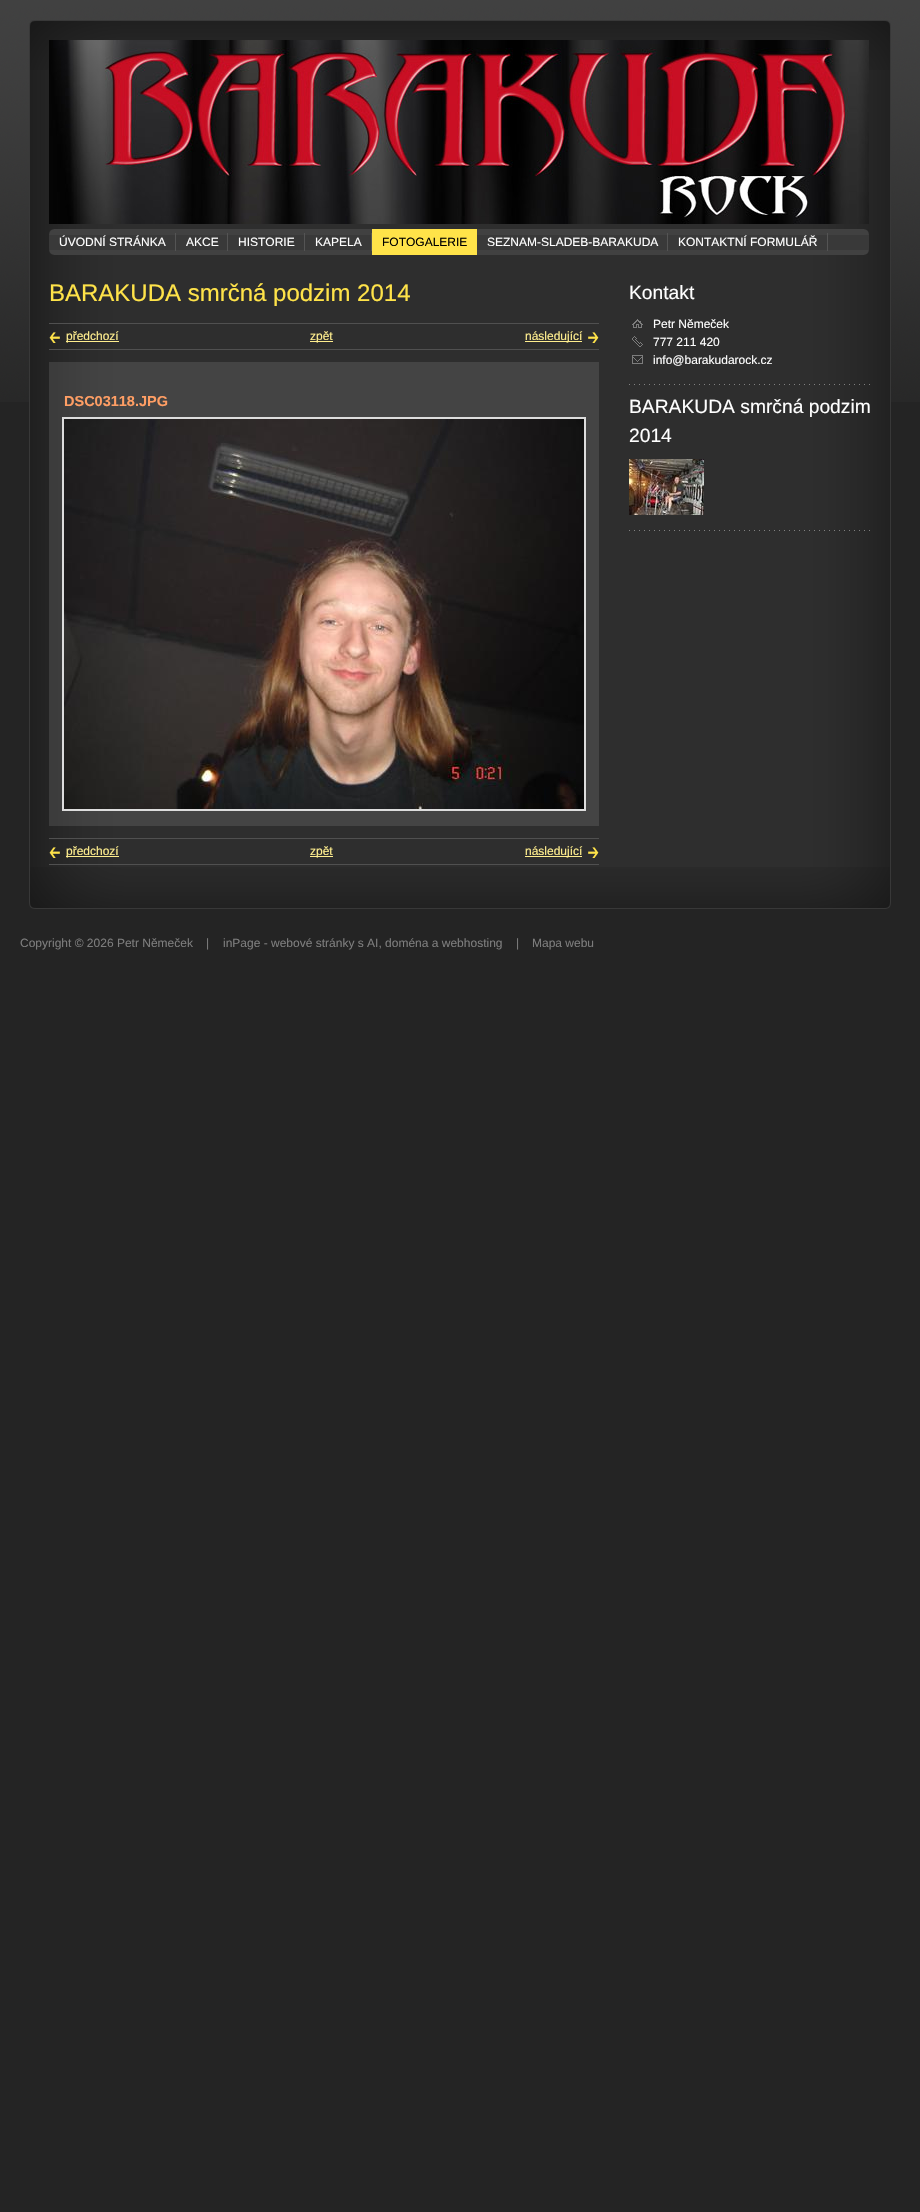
#include "include/core/SkBlurTypes.h"
#include "include/core/SkCanvas.h"
#include "include/core/SkData.h"
#include "include/core/SkFont.h"
#include "include/core/SkFontMgr.h"
#include "include/core/SkImage.h"
#include "include/core/SkMaskFilter.h"
#include "include/core/SkPaint.h"
#include "include/core/SkPathBuilder.h"
#include "include/core/SkTextBlob.h"
#include "include/effects/SkDashPathEffect.h"
#include "include/effects/SkGradientShader.h"
#include "include/utils/SkParsePath.h"

extern sk_sp<SkFontMgr> fontMgr;

static SkFont font(const char* family, int weight, float size, bool italic = false) {
    SkFontStyle style(weight, SkFontStyle::kNormal_Width,
        italic ? SkFontStyle::kItalic_Slant : SkFontStyle::kUpright_Slant);
    SkFont result(fontMgr->matchFamilyStyle(family, style), size);
    result.setSubpixel(true);
    return result;
}

static void drawLabel(SkCanvas* canvas, const char* s, float x, float y, const SkFont& font, SkColor color) {
    SkPaint ink(SkColor4f::FromColor(color));
    ink.setAntiAlias(true);
    canvas->drawString(s, x, y, font, ink);
}

static void fillRect(SkCanvas* canvas, float x, float y, float w, float h, SkColor color) {
    SkPaint ink(SkColor4f::FromColor(color));
    ink.setAntiAlias(true);
    canvas->drawRect(SkRect::MakeXYWH(x, y, w, h), ink);
}

static void drawPhoto(SkCanvas* canvas, const char* path, float x, float y, float w, float h) {
    auto image = SkImages::DeferredFromEncodedData(SkData::MakeFromFileName(path));
    canvas->drawImageRect(image, SkRect::MakeXYWH(x, y, w, h), SkSamplingOptions());
}

void draw(SkCanvas* canvas) {
    SkPaint paint;
    paint.setAntiAlias(true);
    canvas->clear(0xFF242424);
    drawPhoto(canvas, "assets/img1.png", 0, 0, 920, 402);
    drawPhoto(canvas, "assets/img3.png", 29, 70, 862, 797);
    drawPhoto(canvas, "assets/img4.png", 29, 20, 862, 50);
    drawPhoto(canvas, "assets/img2.png", 49, 40, 820, 184);
    drawPhoto(canvas, "assets/img5.png", 29, 867, 862, 42);
    fillRect(canvas, 49, 229, 820, 26, 0xFF414141);
    fillRect(canvas, 49, 235, 820, 15, 0xFF393939);
    drawPhoto(canvas, "assets/img6.png", 49, 229, 5, 26);
    fillRect(canvas, 175, 233, 1, 18, 0xFF545454);
    SkFont font1 = font("Liberation Sans", 400, 12);
    drawLabel(canvas, "ÚVODNÍ STRÁNKA", 59, 246, font1, 0xFFFFFFFF);
    fillRect(canvas, 227, 233, 1, 18, 0xFF545454);
    drawLabel(canvas, "AKCE", 186, 246, font1, 0xFFFFFFFF);
    fillRect(canvas, 304, 233, 1, 18, 0xFF545454);
    drawLabel(canvas, "HISTORIE", 238, 246, font1, 0xFFFFFFFF);
    fillRect(canvas, 371, 233, 1, 18, 0xFF545454);
    drawLabel(canvas, "KAPELA", 315, 246, font1, 0xFFFFFFFF);
    fillRect(canvas, 372, 229, 105, 26, 0xFFFFE349);
    drawLabel(canvas, "FOTOGALERIE", 382, 246, font1, 0xFF000000);
    fillRect(canvas, 667, 233, 1, 18, 0xFF545454);
    drawLabel(canvas, "SEZNAM-SLADEB-BARAKUDA", 487, 246, font1, 0xFFFFFFFF);
    fillRect(canvas, 827, 233, 1, 18, 0xFF545454);
    drawLabel(canvas, "KONTAKTNÍ FORMULÁŘ", 678, 246, font1, 0xFFFFFFFF);
    drawPhoto(canvas, "assets/img7.png", 864, 229, 5, 26);
    SkFont font2 = font("Liberation Sans", 400, 24);
    drawLabel(canvas, "BARAKUDA smrčná podzim 2014", 49, 301, font2, 0xFFFFE349);
    fillRect(canvas, 49, 323, 550, 1, 0xFF505050);
    fillRect(canvas, 49, 349, 550, 1, 0xFF505050);
    drawPhoto(canvas, "assets/img8.png", 49, 332, 11, 11);
    fillRect(canvas, 66, 341, 53, 1, 0xFFFFEE8E);
    drawLabel(canvas, "předchozí", 66, 340, font1, 0xFFFFEE8E);
    fillRect(canvas, 310, 341, 23, 1, 0xFFFFEE8E);
    drawLabel(canvas, "zpět", 310, 340, font1, 0xFFFFEE8E);
    drawPhoto(canvas, "assets/img9.png", 588, 332, 11, 11);
    fillRect(canvas, 525, 341, 57, 1, 0xFFFFEE8E);
    drawLabel(canvas, "následující", 525, 340, font1, 0xFFFFEE8E);
    fillRect(canvas, 49, 362, 550, 464, 0x1AFFFFFF);
    SkFont font3 = font("Liberation Sans", 700, 14.5f);
    drawLabel(canvas, "DSC03118.JPG", 64, 406, font3, 0xFFFF9E64);
    paint.setStroke(true);
    paint.setStrokeWidth(2);
    paint.setColor(0xFFDDDDDD);
    canvas->drawRect(SkRect::MakeXYWH(63, 418, 522, 392), paint);
    drawPhoto(canvas, "assets/img10.png", 64, 419, 520, 390);
    fillRect(canvas, 49, 838, 550, 1, 0xFF505050);
    fillRect(canvas, 49, 864, 550, 1, 0xFF505050);
    drawPhoto(canvas, "assets/img8.png", 49, 847, 11, 11);
    fillRect(canvas, 66, 856, 53, 1, 0xFFFFEE8E);
    drawLabel(canvas, "předchozí", 66, 855, font1, 0xFFFFEE8E);
    fillRect(canvas, 310, 856, 23, 1, 0xFFFFEE8E);
    drawLabel(canvas, "zpět", 310, 855, font1, 0xFFFFEE8E);
    drawPhoto(canvas, "assets/img9.png", 588, 847, 11, 11);
    fillRect(canvas, 525, 856, 57, 1, 0xFFFFEE8E);
    drawLabel(canvas, "následující", 525, 855, font1, 0xFFFFEE8E);
    SkFont font4 = font("Liberation Sans", 400, 19.25f);
    drawLabel(canvas, "Kontakt", 629, 299, font4, 0xFFFFFFFF);
    drawPhoto(canvas, "assets/img11.png", 632, 319, 11, 9);
    drawLabel(canvas, "Petr Němeček", 653, 328, font1, 0xFFFFFFFF);
    drawPhoto(canvas, "assets/img12.png", 632, 336, 11, 11);
    drawLabel(canvas, "777 211 420", 653, 346, font1, 0xFFFFFFFF);
    drawPhoto(canvas, "assets/img13.png", 632, 355, 11, 9);
    drawLabel(canvas, "info@barakudarock.cz", 653, 364, font1, 0xFFFFFFFF);
    drawPhoto(canvas, "assets/img14.png", 629, 384, 241, 1);
    drawLabel(canvas, "BARAKUDA smrčná podzim", 629, 413, font4, 0xFFFFFFFF);
    drawLabel(canvas, "2014", 629, 442, font4, 0xFFFFFFFF);
    drawPhoto(canvas, "assets/img15.png", 629, 459, 75, 56);
    drawPhoto(canvas, "assets/img14.png", 629, 530, 241, 1);
    drawLabel(canvas, "Copyright © 2026 Petr Němeček", 20, 947, font1, 0xFF7D7D7D);
    drawLabel(canvas, "|", 206, 947, font1, 0xFF7D7D7D);
    drawLabel(canvas, "inPage - webové stránky s AI, doména a webhosting", 223, 947, font1, 0xFF7D7D7D);
    drawLabel(canvas, "|", 516, 947, font1, 0xFF7D7D7D);
    drawLabel(canvas, "Mapa webu", 532, 947, font1, 0xFF7D7D7D);
}
